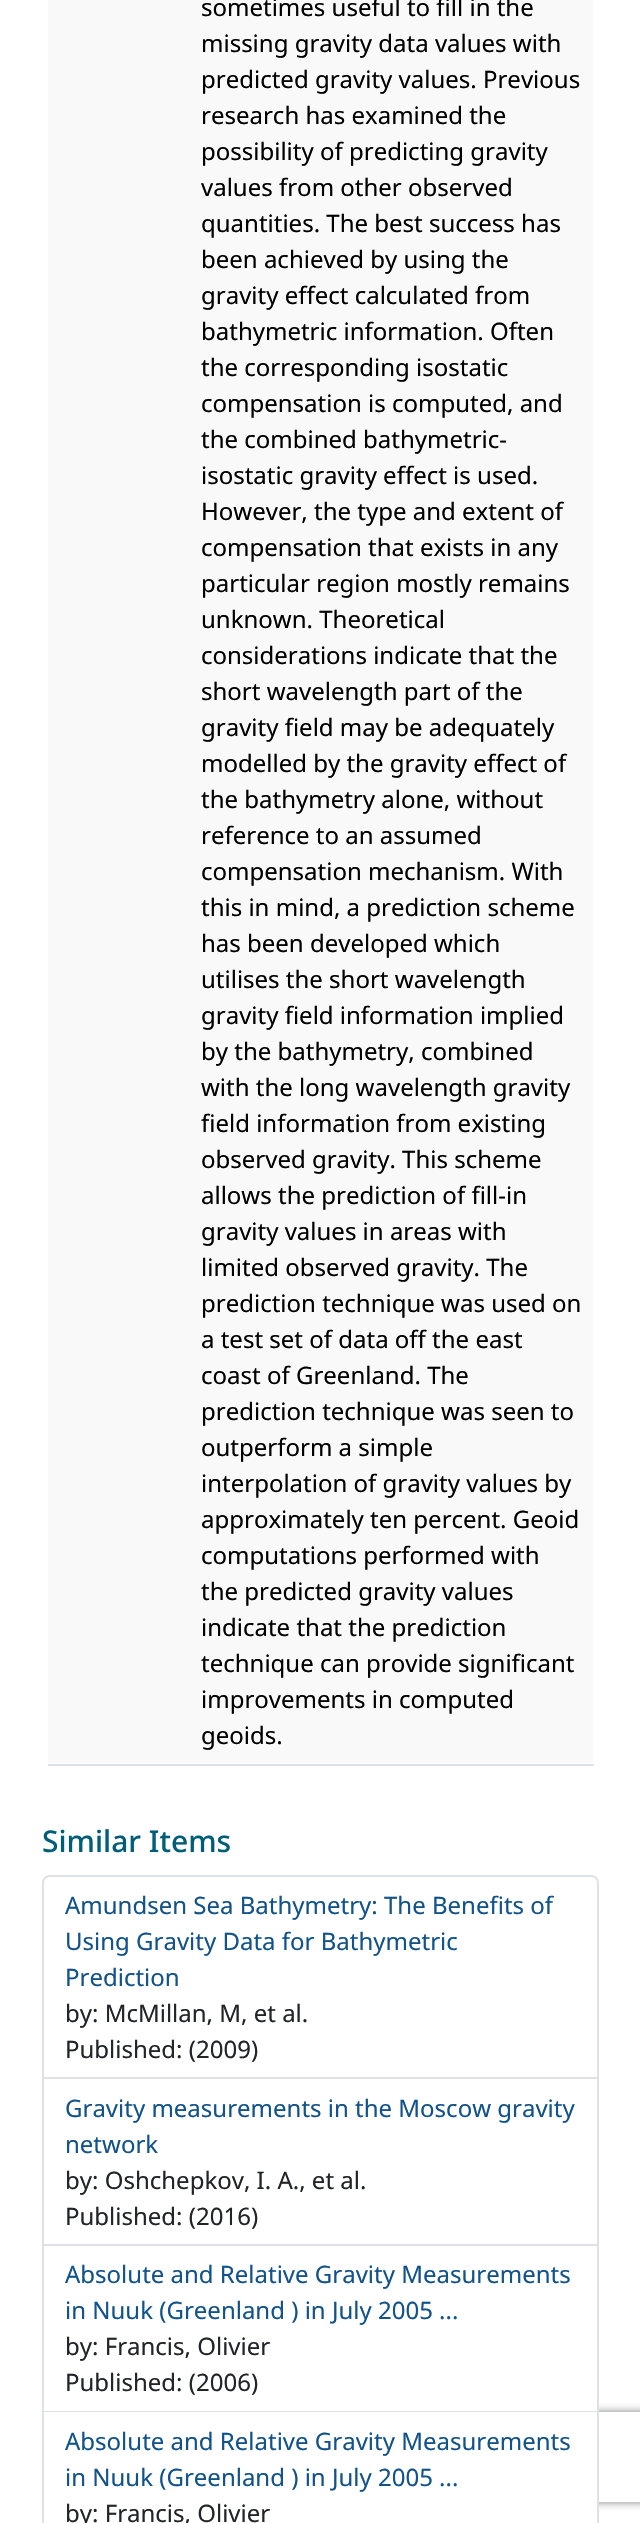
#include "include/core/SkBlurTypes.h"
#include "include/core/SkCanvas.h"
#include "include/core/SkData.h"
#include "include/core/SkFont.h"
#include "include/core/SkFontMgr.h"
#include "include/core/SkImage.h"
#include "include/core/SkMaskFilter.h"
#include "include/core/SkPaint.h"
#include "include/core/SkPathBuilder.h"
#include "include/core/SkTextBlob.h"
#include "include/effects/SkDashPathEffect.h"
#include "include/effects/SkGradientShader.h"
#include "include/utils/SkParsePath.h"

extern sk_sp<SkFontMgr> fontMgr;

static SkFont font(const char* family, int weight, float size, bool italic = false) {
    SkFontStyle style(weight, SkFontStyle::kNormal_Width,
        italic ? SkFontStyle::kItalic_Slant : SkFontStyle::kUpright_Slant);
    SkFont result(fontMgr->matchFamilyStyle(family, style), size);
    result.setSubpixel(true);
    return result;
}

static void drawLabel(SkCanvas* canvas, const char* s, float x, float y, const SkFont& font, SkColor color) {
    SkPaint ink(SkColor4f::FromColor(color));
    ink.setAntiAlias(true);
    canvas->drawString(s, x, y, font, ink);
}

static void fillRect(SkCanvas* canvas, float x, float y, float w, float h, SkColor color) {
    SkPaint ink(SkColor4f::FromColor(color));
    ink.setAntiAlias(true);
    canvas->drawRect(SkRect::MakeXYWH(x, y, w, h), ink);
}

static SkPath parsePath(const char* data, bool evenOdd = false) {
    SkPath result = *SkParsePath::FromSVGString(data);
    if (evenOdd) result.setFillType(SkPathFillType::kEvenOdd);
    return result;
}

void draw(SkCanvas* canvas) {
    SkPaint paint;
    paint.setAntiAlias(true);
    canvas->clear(0xFFFFFFFF);
    fillRect(canvas, 48, 0, 545, 1763, 0xFFF9F9F9);
    fillRect(canvas, 48, 1764, 546, 2, 0xFFDEE2E6);
    SkFont font1 = font("Noto Sans", 400, 24);
    drawLabel(canvas, "sometimes useful to fill in the", 201, 16, font1, 0xFF000000);
    drawLabel(canvas, "missing gravity data values with", 201, 52, font1, 0xFF000000);
    drawLabel(canvas, "predicted gravity values. Previous", 201, 88, font1, 0xFF000000);
    drawLabel(canvas, "research has examined the", 201, 124, font1, 0xFF000000);
    drawLabel(canvas, "possibility of predicting gravity", 201, 160, font1, 0xFF000000);
    drawLabel(canvas, "values from other observed", 201, 196, font1, 0xFF000000);
    drawLabel(canvas, "quantities. The best success has", 201, 232, font1, 0xFF000000);
    drawLabel(canvas, "been achieved by using the", 201, 268, font1, 0xFF000000);
    drawLabel(canvas, "gravity effect calculated from", 201, 304, font1, 0xFF000000);
    drawLabel(canvas, "bathymetric information. Often", 201, 340, font1, 0xFF000000);
    drawLabel(canvas, "the corresponding isostatic", 201, 376, font1, 0xFF000000);
    drawLabel(canvas, "compensation is computed, and", 201, 412, font1, 0xFF000000);
    drawLabel(canvas, "the combined bathymetric-", 201, 448, font1, 0xFF000000);
    drawLabel(canvas, "isostatic gravity effect is used.", 201, 484, font1, 0xFF000000);
    drawLabel(canvas, "However, the type and extent of", 201, 520, font1, 0xFF000000);
    drawLabel(canvas, "compensation that exists in any", 201, 556, font1, 0xFF000000);
    drawLabel(canvas, "particular region mostly remains", 201, 592, font1, 0xFF000000);
    drawLabel(canvas, "unknown. Theoretical", 201, 628, font1, 0xFF000000);
    drawLabel(canvas, "considerations indicate that the", 201, 664, font1, 0xFF000000);
    drawLabel(canvas, "short wavelength part of the", 201, 700, font1, 0xFF000000);
    drawLabel(canvas, "gravity field may be adequately", 201, 736, font1, 0xFF000000);
    drawLabel(canvas, "modelled by the gravity effect of", 201, 772, font1, 0xFF000000);
    drawLabel(canvas, "the bathymetry alone, without", 201, 808, font1, 0xFF000000);
    drawLabel(canvas, "reference to an assumed", 201, 844, font1, 0xFF000000);
    drawLabel(canvas, "compensation mechanism. With", 201, 880, font1, 0xFF000000);
    drawLabel(canvas, "this in mind, a prediction scheme", 201, 916, font1, 0xFF000000);
    drawLabel(canvas, "has been developed which", 201, 952, font1, 0xFF000000);
    drawLabel(canvas, "utilises the short wavelength", 201, 988, font1, 0xFF000000);
    drawLabel(canvas, "gravity field information implied", 201, 1024, font1, 0xFF000000);
    drawLabel(canvas, "by the bathymetry, combined", 201, 1060, font1, 0xFF000000);
    drawLabel(canvas, "with the long wavelength gravity", 201, 1096, font1, 0xFF000000);
    drawLabel(canvas, "field information from existing", 201, 1132, font1, 0xFF000000);
    drawLabel(canvas, "observed gravity. This scheme", 201, 1168, font1, 0xFF000000);
    drawLabel(canvas, "allows the prediction of fill-in", 201, 1204, font1, 0xFF000000);
    drawLabel(canvas, "gravity values in areas with", 201, 1240, font1, 0xFF000000);
    drawLabel(canvas, "limited observed gravity. The", 201, 1276, font1, 0xFF000000);
    drawLabel(canvas, "prediction technique was used on", 201, 1312, font1, 0xFF000000);
    drawLabel(canvas, "a test set of data off the east", 201, 1348, font1, 0xFF000000);
    drawLabel(canvas, "coast of Greenland. The", 201, 1384, font1, 0xFF000000);
    drawLabel(canvas, "prediction technique was seen to", 201, 1420, font1, 0xFF000000);
    drawLabel(canvas, "outperform a simple", 201, 1456, font1, 0xFF000000);
    drawLabel(canvas, "interpolation of gravity values by", 201, 1492, font1, 0xFF000000);
    drawLabel(canvas, "approximately ten percent. Geoid", 201, 1528, font1, 0xFF000000);
    drawLabel(canvas, "computations performed with", 201, 1564, font1, 0xFF000000);
    drawLabel(canvas, "the predicted gravity values", 201, 1600, font1, 0xFF000000);
    drawLabel(canvas, "indicate that the prediction", 201, 1636, font1, 0xFF000000);
    drawLabel(canvas, "technique can provide significant", 201, 1672, font1, 0xFF000000);
    drawLabel(canvas, "improvements in computed", 201, 1708, font1, 0xFF000000);
    drawLabel(canvas, "geoids.", 201, 1744, font1, 0xFF000000);
    SkFont font2 = font("Noto Sans", 500, 30);
    drawLabel(canvas, "Similar Items", 42, 1852, font2, 0xFF005E79);
    paint.setStroke(true);
    paint.setStrokeWidth(2);
    paint.setColor(0xFFDEE2E6);
    canvas->drawPath(parsePath("M50 1876H591C595 1876 598 1879 598 1883V2078H43V1883C43 1879 46 1876 50 1876Z"), paint);
    drawLabel(canvas, "Amundsen Sea Bathymetry: The Benefits of", 65, 1914, font1, 0xFF12538B);
    drawLabel(canvas, "Using Gravity Data for Bathymetric", 65, 1950, font1, 0xFF12538B);
    drawLabel(canvas, "Prediction", 65, 1986, font1, 0xFF12538B);
    drawLabel(canvas, "by: McMillan, M, et al.", 65, 2022, font1, 0xFF212529);
    drawLabel(canvas, "Published: (2009)", 65, 2058, font1, 0xFF212529);
    canvas->save();
    canvas->clipPath(parsePath("M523 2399H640V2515H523ZM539 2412H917C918.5 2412 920 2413.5 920 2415V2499C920 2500.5 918.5 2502 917 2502H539C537.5 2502 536 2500.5 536 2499V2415C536 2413.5 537.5 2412 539 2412Z", true), true);
    paint.setStroke(false);
    paint.setColor(0xFF808080);
    paint.setMaskFilter(SkMaskFilter::MakeBlur(kNormal_SkBlurStyle, 4));
    canvas->drawRoundRect(SkRect::MakeXYWH(536, 2412, 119, 90), 3, 3, paint);
    paint.setMaskFilter(nullptr);
    canvas->restore();
    fillRect(canvas, 597, 2079, 2, 444, 0xFFDEE2E6);
    fillRect(canvas, 42, 2244, 557, 2, 0xFFDEE2E6);
    fillRect(canvas, 42, 2079, 2, 167, 0xFFDEE2E6);
    drawLabel(canvas, "Gravity measurements in the Moscow gravity", 65, 2117, font1, 0xFF12538B);
    drawLabel(canvas, "network", 65, 2153, font1, 0xFF12538B);
    drawLabel(canvas, "by: Oshchepkov, I. A., et al.", 65, 2189, font1, 0xFF212529);
    drawLabel(canvas, "Published: (2016)", 65, 2225, font1, 0xFF212529);
    fillRect(canvas, 530, 2404, 67, 7, 0xFFFFFFFF);
    fillRect(canvas, 42, 2411, 557, 1, 0xFFDEE2E6);
    fillRect(canvas, 42, 2246, 2, 277, 0xFFDEE2E6);
    drawLabel(canvas, "Absolute and Relative Gravity Measurements", 65, 2283, font1, 0xFF12538B);
    drawLabel(canvas, "in Nuuk (Greenland ) in July 2005 ...", 65, 2319, font1, 0xFF12538B);
    drawLabel(canvas, "by: Francis, Olivier", 65, 2355, font1, 0xFF212529);
    drawLabel(canvas, "Published: (2006)", 65, 2391, font1, 0xFF212529);
    fillRect(canvas, 528, 2412, 69, 98, 0xFFFFFFFF);
    drawLabel(canvas, "Absolute and Relative Gravity Measurements", 65, 2450, font1, 0xFF12538B);
    drawLabel(canvas, "in Nuuk (Greenland ) in July 2005 ...", 65, 2486, font1, 0xFF12538B);
    drawLabel(canvas, "by: Francis, Olivier", 65, 2522, font1, 0xFF212529);
}
